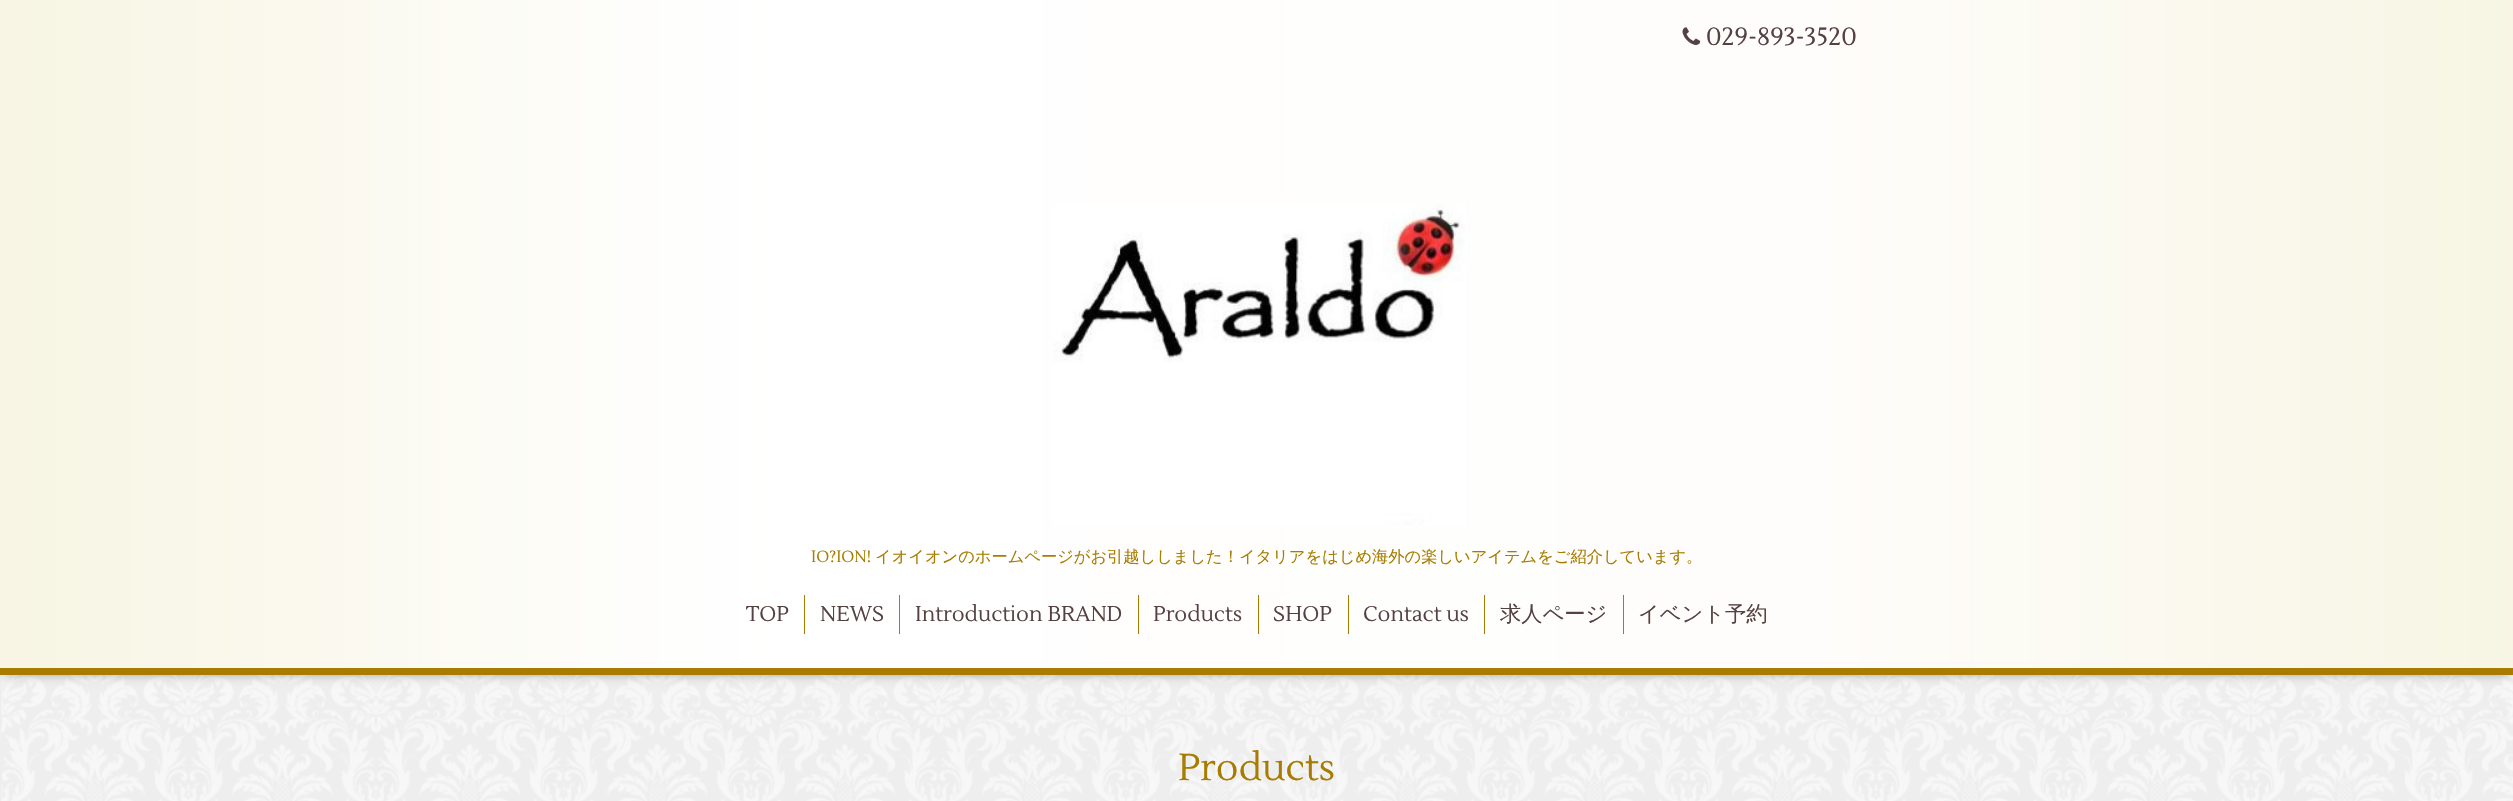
#include "include/core/SkBlurTypes.h"
#include "include/core/SkCanvas.h"
#include "include/core/SkData.h"
#include "include/core/SkFont.h"
#include "include/core/SkFontMgr.h"
#include "include/core/SkImage.h"
#include "include/core/SkMaskFilter.h"
#include "include/core/SkPaint.h"
#include "include/core/SkPathBuilder.h"
#include "include/core/SkTextBlob.h"
#include "include/effects/SkDashPathEffect.h"
#include "include/effects/SkGradientShader.h"
#include "include/utils/SkParsePath.h"

extern sk_sp<SkFontMgr> fontMgr;

static SkFont font(const char* family, int weight, float size, bool italic = false) {
    SkFontStyle style(weight, SkFontStyle::kNormal_Width,
        italic ? SkFontStyle::kItalic_Slant : SkFontStyle::kUpright_Slant);
    SkFont result(fontMgr->matchFamilyStyle(family, style), size);
    result.setSubpixel(true);
    return result;
}

static void drawLabel(SkCanvas* canvas, const char* s, float x, float y, const SkFont& font, SkColor color) {
    SkPaint ink(SkColor4f::FromColor(color));
    ink.setAntiAlias(true);
    canvas->drawString(s, x, y, font, ink);
}

static void fillRect(SkCanvas* canvas, float x, float y, float w, float h, SkColor color) {
    SkPaint ink(SkColor4f::FromColor(color));
    ink.setAntiAlias(true);
    canvas->drawRect(SkRect::MakeXYWH(x, y, w, h), ink);
}

static void drawPhoto(SkCanvas* canvas, const char* path, float x, float y, float w, float h) {
    auto image = SkImages::DeferredFromEncodedData(SkData::MakeFromFileName(path));
    canvas->drawImageRect(image, SkRect::MakeXYWH(x, y, w, h), SkSamplingOptions());
}

void draw(SkCanvas* canvas) {
    SkPaint paint;
    paint.setAntiAlias(true);
    canvas->clear(0xFFEEEEEE);
    drawPhoto(canvas, "assets/img1.png", 1, 675, 2512, 126);
    paint.setColor(0x99000000);
    paint.setMaskFilter(SkMaskFilter::MakeBlur(kNormal_SkBlurStyle, 6));
    canvas->drawRect(SkRect::MakeXYWH(5, 6, 2504, 665), paint);
    paint.setMaskFilter(nullptr);
    drawPhoto(canvas, "assets/img2.png", 0, 0, 2513, 668);
    fillRect(canvas, 0, 668, 2513, 7, 0xFFA87C00);
    drawPhoto(canvas, "assets/img3.png", 1682, 27, 19, 18);
    SkFont font1 = font("Lustria", 400, 25);
    drawLabel(canvas, "029-893-3520", 1706, 45, font1, 0xFF564141);
    drawPhoto(canvas, "assets/img4.png", 1053, 204, 417, 321);
    SkFont font2 = font("Lustria", 400, 16.25f);
    drawLabel(canvas, "IO?ION!", 811, 562, font2, 0xFFA87C00);
    SkFont font3 = font("WenQuanYi Zen Hei", 500, 16.25f);
    drawLabel(canvas, "イオイオンのホームページがお引越ししました！イタリアをはじめ海外の楽しいアイテムをご紹介しています。", 875, 562, font3, 0xFFA87C00);
    SkFont font4 = font("Lustria", 400, 21.25f);
    drawLabel(canvas, "TOP", 746, 621, font4, 0xFF564141);
    fillRect(canvas, 804, 595, 1, 39, 0xFFA87C00);
    drawLabel(canvas, "NEWS", 820, 621, font4, 0xFF564141);
    fillRect(canvas, 899, 595, 1, 39, 0xFFA87C00);
    drawLabel(canvas, "Introduction BRAND", 915, 621, font4, 0xFF564141);
    fillRect(canvas, 1138, 595, 1, 39, 0xFFA87C00);
    drawLabel(canvas, "Products", 1153, 621, font4, 0xFF564141);
    fillRect(canvas, 1258, 595, 1, 39, 0xFFA87C00);
    drawLabel(canvas, "SHOP", 1273, 621, font4, 0xFF564141);
    fillRect(canvas, 1348, 595, 1, 39, 0xFFA87C00);
    drawLabel(canvas, "Contact us", 1363, 621, font4, 0xFF564141);
    fillRect(canvas, 1484, 595, 1, 39, 0xFFA87C00);
    SkFont font5 = font("WenQuanYi Zen Hei", 500, 21.25f);
    drawLabel(canvas, "求人ページ", 1500, 621, font5, 0xFF564141);
    fillRect(canvas, 1623, 595, 1, 39, 0xFFA87C00);
    drawLabel(canvas, "イベント予約", 1638, 621, font5, 0xFF564141);
    SkFont font6 = font("Lustria", 400, 37.5f);
    drawLabel(canvas, "Products", 1178, 780, font6, 0xFFA87C00);
}
